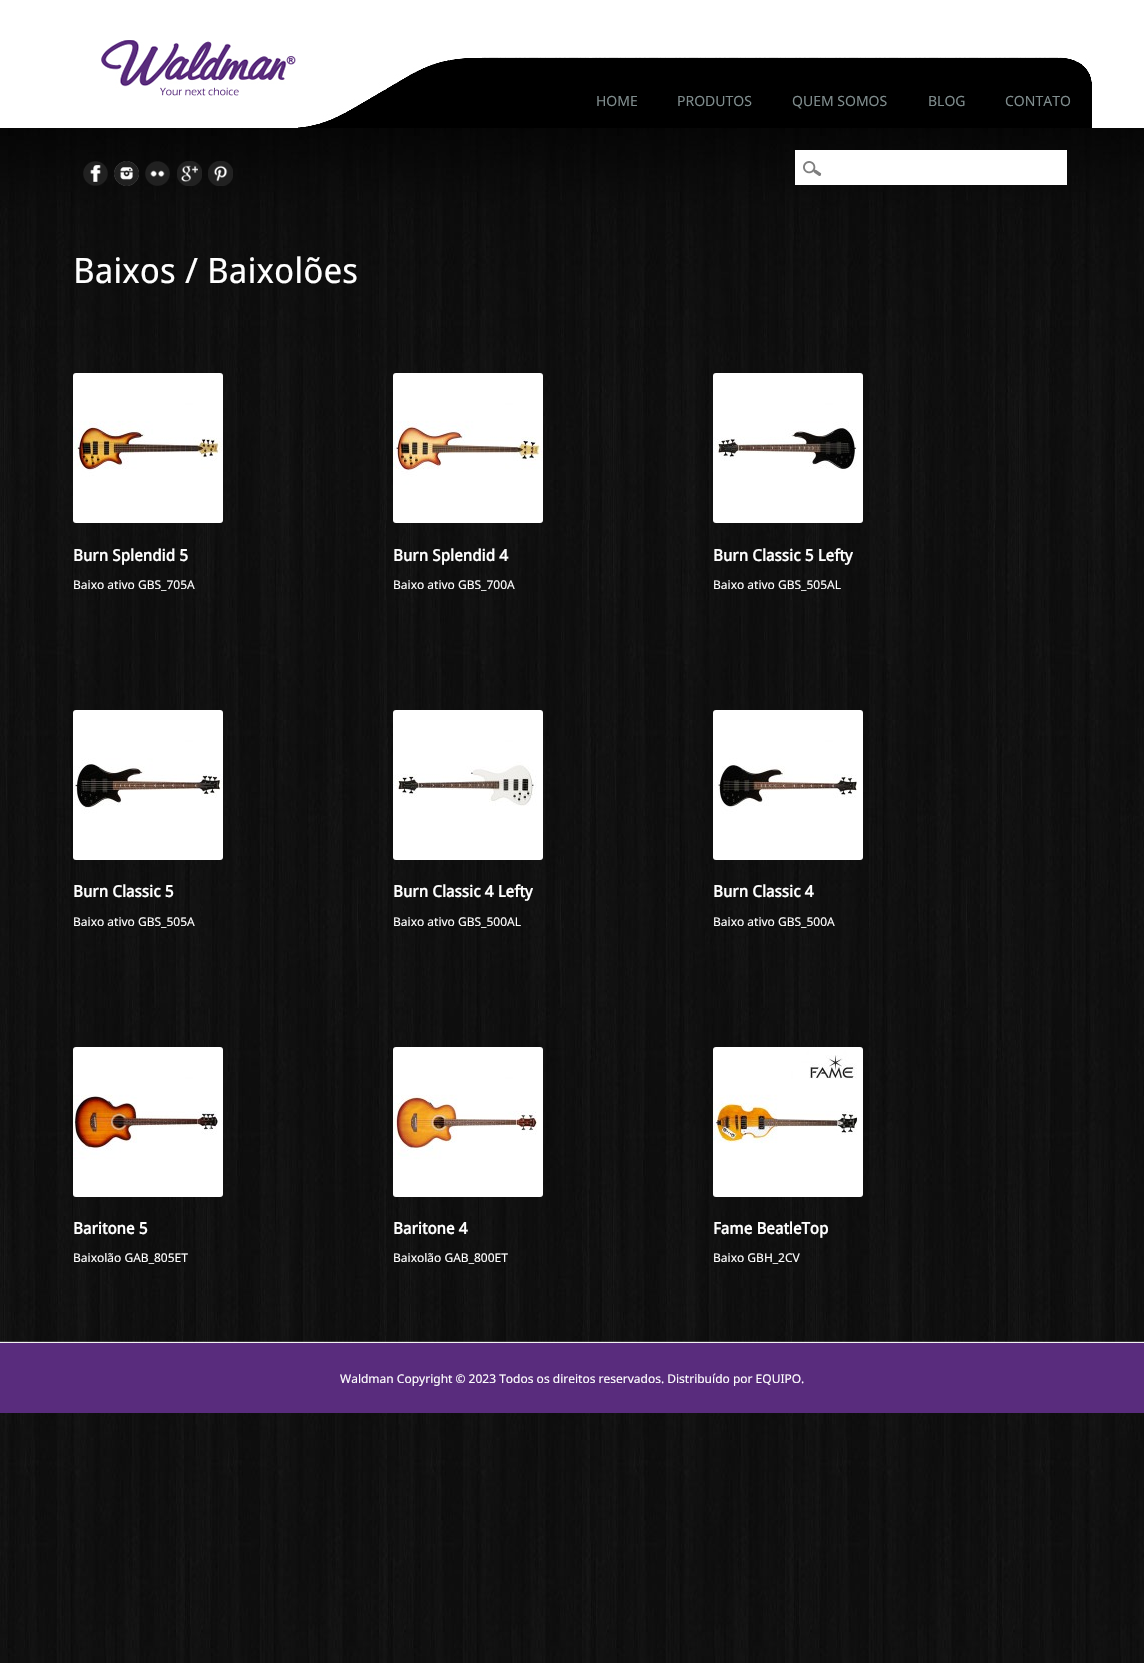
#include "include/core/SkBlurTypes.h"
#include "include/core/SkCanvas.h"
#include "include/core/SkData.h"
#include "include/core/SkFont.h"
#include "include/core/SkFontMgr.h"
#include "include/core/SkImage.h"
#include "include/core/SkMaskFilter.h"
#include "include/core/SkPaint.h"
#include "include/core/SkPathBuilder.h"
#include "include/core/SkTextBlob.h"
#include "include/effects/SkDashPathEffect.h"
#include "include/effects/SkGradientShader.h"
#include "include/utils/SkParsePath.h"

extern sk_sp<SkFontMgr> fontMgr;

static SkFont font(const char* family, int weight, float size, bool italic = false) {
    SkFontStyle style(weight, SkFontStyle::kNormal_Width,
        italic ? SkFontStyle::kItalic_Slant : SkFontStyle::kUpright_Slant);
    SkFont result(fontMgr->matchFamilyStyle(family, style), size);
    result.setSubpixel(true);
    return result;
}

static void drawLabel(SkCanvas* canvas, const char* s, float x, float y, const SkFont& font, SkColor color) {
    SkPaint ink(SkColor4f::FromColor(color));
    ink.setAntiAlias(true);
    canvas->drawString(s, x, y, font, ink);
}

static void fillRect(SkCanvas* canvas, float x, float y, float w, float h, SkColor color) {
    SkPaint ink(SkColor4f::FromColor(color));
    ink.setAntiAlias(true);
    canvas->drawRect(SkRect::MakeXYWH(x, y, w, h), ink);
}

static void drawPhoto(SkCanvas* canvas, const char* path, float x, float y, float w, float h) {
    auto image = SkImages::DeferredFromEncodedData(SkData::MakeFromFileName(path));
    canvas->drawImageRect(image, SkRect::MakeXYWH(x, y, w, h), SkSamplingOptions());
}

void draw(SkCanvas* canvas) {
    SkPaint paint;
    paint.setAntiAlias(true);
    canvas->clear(0xFFFFFFFF);
    drawPhoto(canvas, "assets/img1.png", 0, 128, 1144, 1535);
    drawPhoto(canvas, "assets/img2.png", 298, 57, 794, 71);
    drawPhoto(canvas, "assets/img3.png", 101, 40, 195, 56);
    SkFont font1 = font("Noto Sans", 400, 14);
    drawLabel(canvas, "HOME", 596, 106, font1, 0xFF7F8C8D);
    drawLabel(canvas, "PRODUTOS", 677, 106, font1, 0xFF7F8C8D);
    drawLabel(canvas, "QUEM SOMOS", 792, 106, font1, 0xFF7F8C8D);
    drawLabel(canvas, "BLOG", 928, 106, font1, 0xFF7F8C8D);
    drawLabel(canvas, "CONTATO", 1005, 106, font1, 0xFF7F8C8D);
    drawPhoto(canvas, "assets/img4.png", 83, 161, 25, 25);
    drawPhoto(canvas, "assets/img5.png", 114, 161, 25, 25);
    drawPhoto(canvas, "assets/img6.png", 145, 161, 25, 25);
    drawPhoto(canvas, "assets/img7.png", 177, 161, 25, 25);
    drawPhoto(canvas, "assets/img8.png", 208, 161, 25, 25);
    fillRect(canvas, 795, 150, 272, 35, 0xFFFFFFFF);
    drawPhoto(canvas, "assets/img9.png", 803, 161, 19, 15);
    SkFont font2 = font("Droid Sans", 400, 35);
    drawLabel(canvas, "Baixos / Baixolões", 73, 283, font2, 0xFFFFFFFF);
    drawPhoto(canvas, "assets/img10.png", 73, 373, 150, 150);
    SkFont font3 = font("Droid Sans", 700, 16);
    drawLabel(canvas, "Burn Splendid 5", 73, 561, font3, 0xFFFFFFFF);
    SkFont font4 = font("Noto Sans", 400, 12);
    drawLabel(canvas, "Baixo ativo GBS_705A", 73, 589, font4, 0xFFFFFFFF);
    drawPhoto(canvas, "assets/img11.png", 393, 373, 150, 150);
    drawLabel(canvas, "Burn Splendid 4", 393, 561, font3, 0xFFFFFFFF);
    drawLabel(canvas, "Baixo ativo GBS_700A", 393, 589, font4, 0xFFFFFFFF);
    drawPhoto(canvas, "assets/img12.png", 713, 373, 150, 150);
    drawLabel(canvas, "Burn Classic 5 Lefty", 713, 561, font3, 0xFFFFFFFF);
    drawLabel(canvas, "Baixo ativo GBS_505AL", 713, 589, font4, 0xFFFFFFFF);
    drawPhoto(canvas, "assets/img13.png", 73, 710, 150, 150);
    drawLabel(canvas, "Burn Classic 5", 73, 897, font3, 0xFFFFFFFF);
    drawLabel(canvas, "Baixo ativo GBS_505A", 73, 926, font4, 0xFFFFFFFF);
    drawPhoto(canvas, "assets/img14.png", 393, 710, 150, 150);
    drawLabel(canvas, "Burn Classic 4 Lefty", 393, 897, font3, 0xFFFFFFFF);
    drawLabel(canvas, "Baixo ativo GBS_500AL", 393, 926, font4, 0xFFFFFFFF);
    drawPhoto(canvas, "assets/img15.png", 713, 710, 150, 150);
    drawLabel(canvas, "Burn Classic 4", 713, 897, font3, 0xFFFFFFFF);
    drawLabel(canvas, "Baixo ativo GBS_500A", 713, 926, font4, 0xFFFFFFFF);
    drawPhoto(canvas, "assets/img16.png", 73, 1047, 150, 150);
    drawLabel(canvas, "Baritone 5", 73, 1234, font3, 0xFFFFFFFF);
    drawLabel(canvas, "Baixolão GAB_805ET", 73, 1262, font4, 0xFFFFFFFF);
    drawPhoto(canvas, "assets/img17.png", 393, 1047, 150, 150);
    drawLabel(canvas, "Baritone 4", 393, 1234, font3, 0xFFFFFFFF);
    drawLabel(canvas, "Baixolão GAB_800ET", 393, 1262, font4, 0xFFFFFFFF);
    drawPhoto(canvas, "assets/img18.png", 713, 1047, 150, 150);
    drawLabel(canvas, "Fame BeatleTop", 713, 1234, font3, 0xFFFFFFFF);
    drawLabel(canvas, "Baixo GBH_2CV", 713, 1262, font4, 0xFFFFFFFF);
    paint.setColor(0xFFF0F0F0);
    paint.setMaskFilter(SkMaskFilter::MakeBlur(kNormal_SkBlurStyle, 0.5f));
    canvas->drawRect(SkRect::MakeXYWH(0, 1342, 1144, 70), paint);
    paint.setMaskFilter(nullptr);
    fillRect(canvas, 0, 1343, 1144, 70, 0xFF592C7D);
    drawLabel(canvas, "Waldman Copyright © 2023 Todos os direitos reservados. Distribuído por EQUIPO.", 340, 1383, font4, 0xFFFFFFFF);
}
